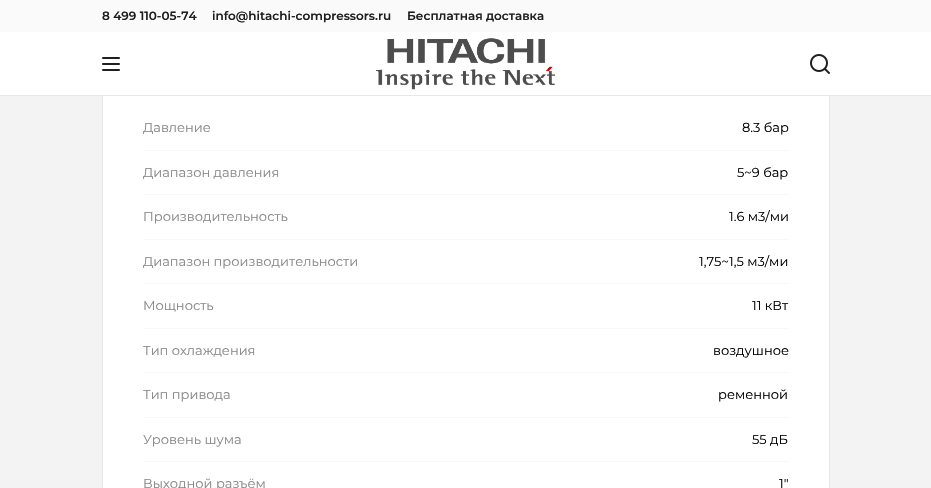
#include "include/core/SkBlurTypes.h"
#include "include/core/SkCanvas.h"
#include "include/core/SkData.h"
#include "include/core/SkFont.h"
#include "include/core/SkFontMgr.h"
#include "include/core/SkImage.h"
#include "include/core/SkMaskFilter.h"
#include "include/core/SkPaint.h"
#include "include/core/SkPathBuilder.h"
#include "include/core/SkTextBlob.h"
#include "include/effects/SkDashPathEffect.h"
#include "include/effects/SkGradientShader.h"
#include "include/utils/SkParsePath.h"

extern sk_sp<SkFontMgr> fontMgr;

static SkFont font(const char* family, int weight, float size, bool italic = false) {
    SkFontStyle style(weight, SkFontStyle::kNormal_Width,
        italic ? SkFontStyle::kItalic_Slant : SkFontStyle::kUpright_Slant);
    SkFont result(fontMgr->matchFamilyStyle(family, style), size);
    result.setSubpixel(true);
    return result;
}

static void drawLabel(SkCanvas* canvas, const char* s, float x, float y, const SkFont& font, SkColor color) {
    SkPaint ink(SkColor4f::FromColor(color));
    ink.setAntiAlias(true);
    canvas->drawString(s, x, y, font, ink);
}

static void fillRect(SkCanvas* canvas, float x, float y, float w, float h, SkColor color) {
    SkPaint ink(SkColor4f::FromColor(color));
    ink.setAntiAlias(true);
    canvas->drawRect(SkRect::MakeXYWH(x, y, w, h), ink);
}

static void drawPhoto(SkCanvas* canvas, const char* path, float x, float y, float w, float h) {
    auto image = SkImages::DeferredFromEncodedData(SkData::MakeFromFileName(path));
    canvas->drawImageRect(image, SkRect::MakeXYWH(x, y, w, h), SkSamplingOptions());
}

void draw(SkCanvas* canvas) {
    SkPaint paint;
    paint.setAntiAlias(true);
    canvas->clear(0xFFF3F3F3);
    fillRect(canvas, 103, 96, 726, 392, 0xFFFFFFFF);
    paint.setStroke(true);
    paint.setStrokeWidth(1);
    paint.setColor(0xFFE7E7E7);
    canvas->drawRect(SkRect::MakeXYWH(102.5f, -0.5f, 727, 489), paint);
    fillRect(canvas, 0, 0, 931, 32, 0xFFFAFAFA);
    SkFont font1 = font("Montserrat", 600, 12);
    drawLabel(canvas, "8 499 110-05-74", 102, 20, font1, 0xFF1F1F1F);
    drawLabel(canvas, "info@hitachi-compressors.ru", 212, 20, font1, 0xFF1F1F1F);
    drawLabel(canvas, "Бесплатная доставка", 407, 20, font1, 0xFF1F1F1F);
    fillRect(canvas, 0, 32, 931, 63, 0xFFFFFFFF);
    fillRect(canvas, 0, 95, 931, 1, 0xFFE7E7E7);
    drawPhoto(canvas, "assets/img1.png", 102, 57, 18, 14);
    drawPhoto(canvas, "assets/img2.png", 376, 38, 179, 52);
    drawPhoto(canvas, "assets/img3.png", 810, 54, 20, 20);
    fillRect(canvas, 143, 150, 646, 1, 0xFFF7F7F7);
    SkFont font2 = font("Montserrat", 400, 13);
    drawLabel(canvas, "Давление", 143, 132, font2, 0xFF888888);
    drawLabel(canvas, "8.3 бар", 742, 132, font2, 0xFF000000);
    fillRect(canvas, 143, 194, 646, 1, 0xFFF7F7F7);
    drawLabel(canvas, "Диапазон давления", 143, 177, font2, 0xFF888888);
    drawLabel(canvas, "5~9 бар", 737, 177, font2, 0xFF000000);
    fillRect(canvas, 143, 239, 646, 1, 0xFFF7F7F7);
    drawLabel(canvas, "Производительность", 143, 221, font2, 0xFF888888);
    drawLabel(canvas, "1.6 м3/ми", 729, 221, font2, 0xFF000000);
    fillRect(canvas, 143, 283, 646, 1, 0xFFF7F7F7);
    drawLabel(canvas, "Диапазон производительности", 143, 266, font2, 0xFF888888);
    drawLabel(canvas, "1,75~1,5 м3/ми", 699, 266, font2, 0xFF000000);
    fillRect(canvas, 143, 328, 646, 1, 0xFFF7F7F7);
    drawLabel(canvas, "Мощность", 143, 310, font2, 0xFF888888);
    drawLabel(canvas, "11 кВт", 752, 310, font2, 0xFF000000);
    fillRect(canvas, 143, 372, 646, 1, 0xFFF7F7F7);
    drawLabel(canvas, "Тип охлаждения", 143, 355, font2, 0xFF888888);
    drawLabel(canvas, "воздушное", 713, 355, font2, 0xFF000000);
    fillRect(canvas, 143, 417, 646, 1, 0xFFF7F7F7);
    drawLabel(canvas, "Тип привода", 143, 399, font2, 0xFF888888);
    drawLabel(canvas, "ременной", 718, 399, font2, 0xFF000000);
    fillRect(canvas, 143, 461, 646, 1, 0xFFF7F7F7);
    drawLabel(canvas, "Уровень шума", 143, 444, font2, 0xFF888888);
    drawLabel(canvas, "55 дБ", 752, 444, font2, 0xFF000000);
    drawLabel(canvas, "Выходной разъём", 143, 488, font2, 0xFF888888);
    drawLabel(canvas, "1\"", 779, 488, font2, 0xFF000000);
}
